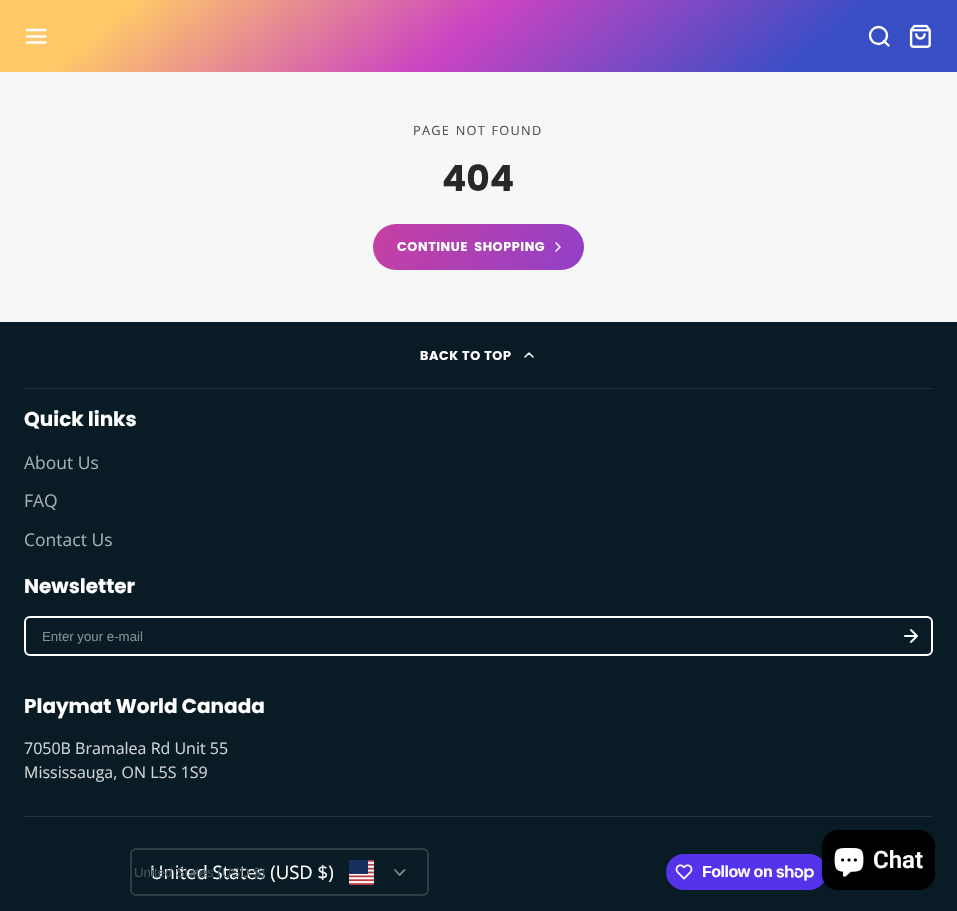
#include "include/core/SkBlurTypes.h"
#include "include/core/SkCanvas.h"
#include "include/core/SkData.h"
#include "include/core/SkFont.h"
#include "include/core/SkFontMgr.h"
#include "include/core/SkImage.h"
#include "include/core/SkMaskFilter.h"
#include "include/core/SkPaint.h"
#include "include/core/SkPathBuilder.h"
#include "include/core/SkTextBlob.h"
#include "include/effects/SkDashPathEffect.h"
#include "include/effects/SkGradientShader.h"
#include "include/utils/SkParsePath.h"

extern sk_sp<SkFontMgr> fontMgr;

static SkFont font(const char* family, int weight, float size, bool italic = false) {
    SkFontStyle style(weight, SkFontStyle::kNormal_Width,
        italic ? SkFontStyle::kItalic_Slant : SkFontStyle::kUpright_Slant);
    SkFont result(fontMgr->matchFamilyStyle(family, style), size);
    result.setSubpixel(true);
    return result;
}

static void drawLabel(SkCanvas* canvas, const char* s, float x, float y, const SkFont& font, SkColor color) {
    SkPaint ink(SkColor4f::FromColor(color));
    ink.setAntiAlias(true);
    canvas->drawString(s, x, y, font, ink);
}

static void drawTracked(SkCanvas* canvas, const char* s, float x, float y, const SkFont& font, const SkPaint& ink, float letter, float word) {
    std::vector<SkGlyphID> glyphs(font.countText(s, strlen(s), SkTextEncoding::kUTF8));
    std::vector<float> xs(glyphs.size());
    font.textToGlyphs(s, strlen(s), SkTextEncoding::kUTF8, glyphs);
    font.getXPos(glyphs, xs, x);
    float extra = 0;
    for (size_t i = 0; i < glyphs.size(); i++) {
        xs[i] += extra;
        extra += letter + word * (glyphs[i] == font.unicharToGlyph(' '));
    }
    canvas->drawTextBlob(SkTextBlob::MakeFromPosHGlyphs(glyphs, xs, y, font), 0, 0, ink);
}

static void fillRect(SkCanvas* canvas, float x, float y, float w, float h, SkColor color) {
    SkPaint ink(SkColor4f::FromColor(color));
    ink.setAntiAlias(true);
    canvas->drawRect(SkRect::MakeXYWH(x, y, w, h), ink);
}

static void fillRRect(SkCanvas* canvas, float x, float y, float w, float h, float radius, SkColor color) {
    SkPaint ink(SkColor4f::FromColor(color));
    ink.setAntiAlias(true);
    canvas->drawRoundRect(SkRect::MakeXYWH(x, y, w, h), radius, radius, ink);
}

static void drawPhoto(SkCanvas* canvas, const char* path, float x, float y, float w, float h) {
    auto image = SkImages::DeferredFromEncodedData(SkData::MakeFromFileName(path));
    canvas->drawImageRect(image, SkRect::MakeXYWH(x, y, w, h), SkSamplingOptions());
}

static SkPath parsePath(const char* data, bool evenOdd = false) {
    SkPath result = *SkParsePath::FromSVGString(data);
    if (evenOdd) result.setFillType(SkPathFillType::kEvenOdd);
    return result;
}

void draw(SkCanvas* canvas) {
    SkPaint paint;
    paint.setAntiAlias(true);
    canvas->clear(0xFFF7F7F7);
    {
        const SkColor colors[] = {0xFF384EC5, 0xFFCB44C2, 0xFFFFC968};
        const float stops[] = {0.16f, 0.52f, 0.87f};
        const SkPoint ends[] = {{694, 293}, {263, -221}};
        paint.setShader(SkGradientShader::MakeLinear(ends, colors, stops, 3, SkTileMode::kClamp));
        paint.setAlpha(255);
    }
    canvas->drawRect(SkRect::MakeXYWH(0, 0, 957, 72), paint);
    paint.setStroke(true);
    paint.setStrokeWidth(2.4f);
    paint.setStrokeCap(SkPaint::kRound_Cap);
    paint.setStrokeJoin(SkPaint::kRound_Join);
    paint.setShader(nullptr);
    paint.setColor(0xFFFFFFFF);
    canvas->drawPath(parsePath("M27 36.5H45.5M27 30H45.5M27 42.5H45.5"), paint);
    paint.setStrokeCap(SkPaint::kButt_Cap);
    paint.setStrokeJoin(SkPaint::kMiter_Join);
    canvas->drawCircle(878.5f, 35.5f, 8.5f, paint);
    paint.setStrokeCap(SkPaint::kRound_Cap);
    paint.setStrokeJoin(SkPaint::kRound_Join);
    canvas->drawPath(parsePath("M888.5 45.5L884 41"), paint);
    drawPhoto(canvas, "assets/img1.png", 909, 24, 22, 24);
    SkFont font1 = font("Open Sans", 400, 12.75f);
    paint.setStroke(false);
    paint.setColor(0xFF515151);
    drawTracked(canvas, "PAGE NOT FOUND", 413, 135, font1, paint, 1.25f, 1);
    SkFont font2 = font("Poppins", 700, 36);
    drawLabel(canvas, "404", 442, 191, font2, 0xFF282828);
    {
        const SkColor colors[] = {0xFFC740A3, 0xFF9140C7};
        const float stops[] = {0, 1};
        const SkPoint ends[] = {{383, 202}, {574, 292}};
        paint.setShader(SkGradientShader::MakeLinear(ends, colors, stops, 2, SkTileMode::kClamp));
        paint.setAlpha(255);
    }
    canvas->drawRoundRect(SkRect::MakeXYWH(373, 224, 211, 46), 23, 23, paint);
    SkFont font3 = font("Poppins", 700, 12.75f);
    paint.setShader(nullptr);
    paint.setColor(0xFFFFFFFF);
    drawTracked(canvas, "CONTINUE SHOPPING", 397, 251, font3, paint, 0.6f, 3);
    paint.setStroke(true);
    paint.setStrokeWidth(1.5f);
    canvas->drawPath(parsePath("M556 251L560 247L556 243"), paint);
    fillRect(canvas, 0, 322, 957, 589, 0xFF091C25);
    paint.setStroke(false);
    drawTracked(canvas, "BACK TO TOP", 420, 360, font3, paint, 0.6f, 0);
    paint.setStroke(true);
    canvas->drawPath(parsePath("M533 357L529 353L525 357"), paint);
    fillRect(canvas, 24, 388, 909, 1, 0xFF22333B);
    SkFont font4 = font("Poppins", 700, 20);
    drawLabel(canvas, "Quick links", 24, 426, font4, 0xFFFFFFFF);
    SkFont font5 = font("Open Sans", 400, 17.5f);
    drawLabel(canvas, "About Us", 24, 469, font5, 0xFFA6ADB1);
    drawLabel(canvas, "FAQ", 24, 507, font5, 0xFFA6ADB1);
    drawLabel(canvas, "Contact Us", 24, 546, font5, 0xFFA6ADB1);
    drawLabel(canvas, "Newsletter", 24, 593, font4, 0xFFFFFFFF);
    paint.setStrokeWidth(2);
    paint.setStrokeCap(SkPaint::kButt_Cap);
    paint.setStrokeJoin(SkPaint::kMiter_Join);
    canvas->drawRoundRect(SkRect::MakeXYWH(25, 617, 907, 38), 5, 5, paint);
    SkFont font6 = font("Liberation Sans", 400, 13.25f);
    drawLabel(canvas, "Enter your e-mail", 42, 641, font6, 0xFF848E92);
    paint.setStrokeWidth(1.9f);
    paint.setStrokeCap(SkPaint::kRound_Cap);
    paint.setStrokeJoin(SkPaint::kRound_Join);
    canvas->drawPath(parsePath("M905 636H916M911 630L917 636L911 642"), paint);
    drawLabel(canvas, "Playmat World Canada", 24, 713, font4, 0xFFFFFFFF);
    SkFont font7 = font("Open Sans", 400, 16);
    drawLabel(canvas, "7050B Bramalea Rd Unit 55", 24, 754, font7, 0xFFCED2D3);
    drawLabel(canvas, "Mississauga, ON L5S 1S9", 24, 778, font7, 0xFFCED2D3);
    fillRect(canvas, 24, 816, 909, 1, 0xFF22333B);
    paint.setStrokeWidth(2);
    paint.setStrokeCap(SkPaint::kButt_Cap);
    paint.setStrokeJoin(SkPaint::kMiter_Join);
    paint.setColor(0xFF2E3E46);
    canvas->drawRoundRect(SkRect::MakeXYWH(131, 849, 297, 46), 5, 5, paint);
    SkFont font8 = font("Open Sans", 400, 18.5f);
    drawLabel(canvas, "United States (USD $)", 150, 879, font8, 0xFFFFFFFF);
    drawPhoto(canvas, "assets/img2.png", 349, 860, 25, 25);
    paint.setStrokeWidth(1.8f);
    paint.setStrokeCap(SkPaint::kRound_Cap);
    paint.setStrokeJoin(SkPaint::kRound_Join);
    paint.setColor(0xFF7A8489);
    canvas->drawPath(parsePath("M395 870L399.5 875L404.5 870"), paint);
    drawLabel(canvas, "United States (USD $)", 134, 877, font6, 0xFF46545B);
    fillRRect(canvas, 666, 854, 161, 36, 18, 0xFF5433EB);
    drawPhoto(canvas, "assets/img3.png", 675, 864, 18, 16);
    SkFont font9 = font("Liberation Sans", 700, 16);
    paint.setStroke(false);
    paint.setColor(0xFFFFFFFF);
    drawTracked(canvas, "Follow on", 702, 877, font9, paint, -0.5f, 0);
    drawPhoto(canvas, "assets/img4.png", 776, 865, 38, 16);
    paint.setColor(0x26000000);
    paint.setMaskFilter(SkMaskFilter::MakeBlur(kNormal_SkBlurStyle, 2.5f));
    canvas->drawRoundRect(SkRect::MakeXYWH(822, 830, 113, 60), 16, 16, paint);
    paint.setMaskFilter(nullptr);
    fillRRect(canvas, 822, 830, 113, 60, 16, 0xFF000000);
    drawPhoto(canvas, "assets/img5.png", 834, 848, 30, 29);
    SkFont font10 = font("Roboto", 600, 24);
    drawLabel(canvas, "Chat", 873, 868, font10, 0xFFFFFFFF);
}
